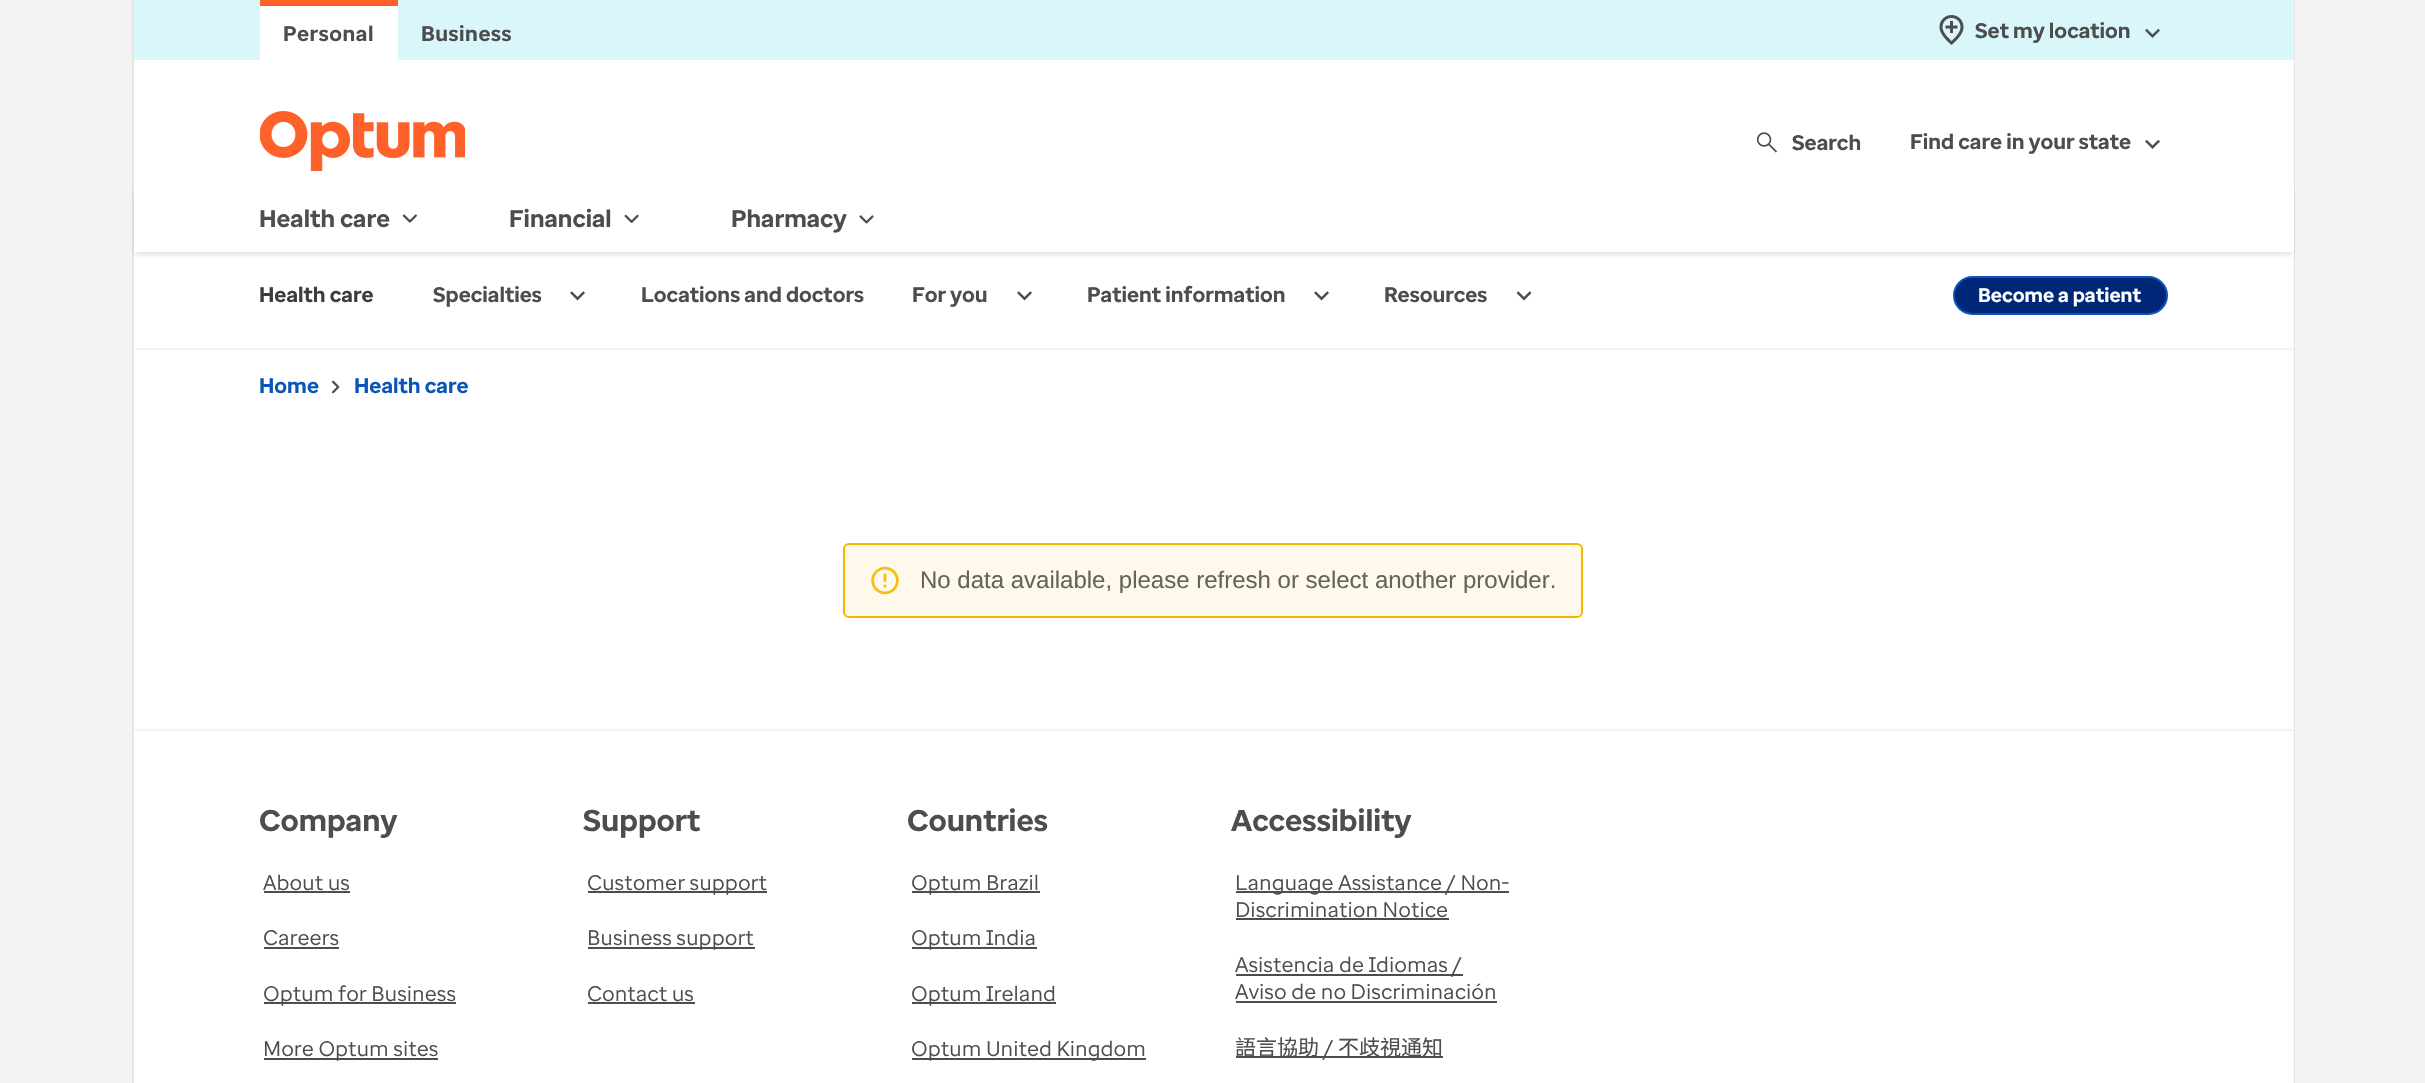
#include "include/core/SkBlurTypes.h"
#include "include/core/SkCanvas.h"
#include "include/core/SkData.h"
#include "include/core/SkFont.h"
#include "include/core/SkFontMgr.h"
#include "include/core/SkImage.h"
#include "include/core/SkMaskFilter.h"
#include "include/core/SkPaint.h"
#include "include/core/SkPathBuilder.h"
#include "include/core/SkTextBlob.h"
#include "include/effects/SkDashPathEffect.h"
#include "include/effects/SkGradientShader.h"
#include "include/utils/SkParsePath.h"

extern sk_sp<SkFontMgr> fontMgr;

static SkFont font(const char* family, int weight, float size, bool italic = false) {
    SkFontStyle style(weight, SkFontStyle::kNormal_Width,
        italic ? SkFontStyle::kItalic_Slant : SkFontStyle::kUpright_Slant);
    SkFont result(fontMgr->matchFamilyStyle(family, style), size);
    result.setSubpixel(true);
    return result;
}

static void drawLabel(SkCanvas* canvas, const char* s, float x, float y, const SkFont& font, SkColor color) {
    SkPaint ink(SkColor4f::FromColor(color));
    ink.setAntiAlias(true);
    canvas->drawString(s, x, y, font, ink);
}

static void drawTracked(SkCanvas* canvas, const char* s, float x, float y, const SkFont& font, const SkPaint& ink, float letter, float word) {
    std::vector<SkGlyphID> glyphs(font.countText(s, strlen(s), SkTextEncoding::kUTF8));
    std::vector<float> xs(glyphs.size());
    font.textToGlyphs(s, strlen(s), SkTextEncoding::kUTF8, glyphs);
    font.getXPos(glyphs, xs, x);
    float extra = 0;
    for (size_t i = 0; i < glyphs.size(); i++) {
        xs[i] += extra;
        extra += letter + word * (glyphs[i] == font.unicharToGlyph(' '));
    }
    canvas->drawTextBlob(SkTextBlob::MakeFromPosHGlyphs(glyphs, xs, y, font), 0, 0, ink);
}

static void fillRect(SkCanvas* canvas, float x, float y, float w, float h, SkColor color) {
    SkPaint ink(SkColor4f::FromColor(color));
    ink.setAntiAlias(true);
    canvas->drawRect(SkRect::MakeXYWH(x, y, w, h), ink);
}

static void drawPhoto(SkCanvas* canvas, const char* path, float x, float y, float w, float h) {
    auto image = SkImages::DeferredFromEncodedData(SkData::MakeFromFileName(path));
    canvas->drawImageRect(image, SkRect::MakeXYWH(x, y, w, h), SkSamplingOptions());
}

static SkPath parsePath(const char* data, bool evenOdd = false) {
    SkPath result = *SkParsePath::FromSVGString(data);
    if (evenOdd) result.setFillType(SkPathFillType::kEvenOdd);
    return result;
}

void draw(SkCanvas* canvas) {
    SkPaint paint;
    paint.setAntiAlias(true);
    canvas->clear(0xFFF3F3F3);
    fillRect(canvas, 132, 0, 2, 1083, 0xFFE5E5E6);
    fillRect(canvas, 2294, 0, 1, 1083, 0xFFE5E5E6);
    fillRect(canvas, 134, 60, 2160, 1023, 0xFFFFFFFF);
    fillRect(canvas, 134, 0, 2160, 60, 0xFFD9F6FA);
    fillRect(canvas, 260, 6, 138, 54, 0xFFFFFFFF);
    fillRect(canvas, 260, 0, 138, 6, 0xFFFF612B);
    SkFont font1 = font("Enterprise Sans", 700, 21);
    paint.setColor(0xFF4B4D4F);
    drawTracked(canvas, "Personal", 283, 41, font1, paint, 0.5f, 0);
    drawTracked(canvas, "Business", 421, 41, font1, paint, 0.5f, 0);
    drawPhoto(canvas, "assets/img1.png", 1939, 15, 25, 30);
    drawLabel(canvas, "Set my location", 1975, 38, font1, 0xFF4B4D4F);
    drawPhoto(canvas, "assets/img2.png", 2145, 28, 15, 10);
    drawPhoto(canvas, "assets/img3.png", 260, 111, 205, 60);
    drawPhoto(canvas, "assets/img4.png", 1756, 132, 21, 21);
    SkFont font2 = font("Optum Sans", 700, 21);
    drawLabel(canvas, "Search", 1792, 150, font2, 0xFF4B4D4F);
    drawLabel(canvas, "Find care in your state", 1910, 149, font1, 0xFF4B4D4F);
    drawPhoto(canvas, "assets/img5.png", 2145, 139, 15, 10);
    canvas->save();
    canvas->clipPath(parsePath("M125 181H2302V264H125ZM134 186H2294V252H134Z", true), true);
    paint.setColor(0x2919191A);
    paint.setMaskFilter(SkMaskFilter::MakeBlur(kNormal_SkBlurStyle, 3));
    canvas->drawRect(SkRect::MakeXYWH(135, 191, 2157, 63), paint);
    paint.setMaskFilter(nullptr);
    canvas->restore();
    SkFont font3 = font("Enterprise Sans", 700, 24);
    drawLabel(canvas, "Health care", 259, 227, font3, 0xFF4B4D4F);
    drawPhoto(canvas, "assets/img6.png", 402, 214, 15, 9);
    drawLabel(canvas, "Financial", 509, 227, font3, 0xFF4B4D4F);
    drawPhoto(canvas, "assets/img7.png", 624, 214, 15, 9);
    drawLabel(canvas, "Pharmacy", 731, 227, font3, 0xFF4B4D4F);
    drawPhoto(canvas, "assets/img8.png", 859, 215, 15, 9);
    fillRect(canvas, 134, 348, 2160, 2, 0xFFF3F3F3);
    drawLabel(canvas, "Health care", 259, 302, font1, 0xFF3D3C38);
    drawLabel(canvas, "Specialties", 433, 302, font1, 0xFF4B4D4F);
    drawPhoto(canvas, "assets/img9.png", 570, 291, 15, 10);
    drawLabel(canvas, "Locations and doctors", 641, 302, font1, 0xFF4B4D4F);
    drawLabel(canvas, "For you", 912, 302, font1, 0xFF4B4D4F);
    drawPhoto(canvas, "assets/img9.png", 1017, 291, 15, 10);
    drawLabel(canvas, "Patient information", 1087, 302, font1, 0xFF4B4D4F);
    drawPhoto(canvas, "assets/img9.png", 1314, 291, 15, 10);
    drawLabel(canvas, "Resources", 1384, 302, font1, 0xFF4B4D4F);
    drawPhoto(canvas, "assets/img10.png", 1516, 291, 16, 10);
    paint.setColor(0xFF002677);
    canvas->drawRoundRect(SkRect::MakeXYWH(1954, 277, 213, 37), 18.5f, 18.5f, paint);
    paint.setStroke(true);
    paint.setStrokeWidth(2);
    paint.setColor(0xFF0C55B8);
    canvas->drawRoundRect(SkRect::MakeXYWH(1954, 277, 213, 37), 18.5f, 18.5f, paint);
    SkFont font4 = font("Enterprise Sans", 700, 19.5f);
    drawLabel(canvas, "Become a patient", 1978, 302, font4, 0xFFFFFFFF);
    drawLabel(canvas, "Home", 259, 393, font1, 0xFF0C55B8);
    drawPhoto(canvas, "assets/img11.png", 332, 380, 8, 14);
    drawLabel(canvas, "Health care", 354, 393, font1, 0xFF0C55B8);
    paint.setStroke(false);
    paint.setColor(0xFFFEF9EA);
    canvas->drawRoundRect(SkRect::MakeXYWH(844, 544, 738, 73), 5, 5, paint);
    paint.setStroke(true);
    paint.setColor(0xFFF5B700);
    canvas->drawRoundRect(SkRect::MakeXYWH(844, 544, 738, 73), 5, 5, paint);
    drawPhoto(canvas, "assets/img12.png", 871, 566, 28, 29);
    SkFont font5 = font("Liberation Sans", 400, 24);
    drawLabel(canvas, "No data available, please refresh or select another provider.", 920, 588, font5, 0xFF65635D);
    fillRect(canvas, 134, 729, 2160, 2, 0xFFF3F3F3);
    SkFont font6 = font("Enterprise Sans", 700, 30);
    drawLabel(canvas, "Company", 259, 831, font6, 0xFF4B4D4F);
    SkFont font7 = font("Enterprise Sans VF", 400, 21);
    drawLabel(canvas, "About us", 263, 890, font7, 0xFF4B4D4F);
    fillRect(canvas, 264, 891, 86, 2, 0xFF4B4D4F);
    drawLabel(canvas, "Careers", 263, 945, font7, 0xFF4B4D4F);
    fillRect(canvas, 264, 947, 75, 2, 0xFF4B4D4F);
    fillRect(canvas, 264, 1002, 192, 2, 0xFF4B4D4F);
    drawLabel(canvas, "Optum for Business", 263, 1001, font7, 0xFF4B4D4F);
    fillRect(canvas, 264, 1058, 174, 2, 0xFF4B4D4F);
    drawLabel(canvas, "More Optum sites", 263, 1056, font7, 0xFF4B4D4F);
    drawLabel(canvas, "Support", 583, 831, font6, 0xFF4B4D4F);
    fillRect(canvas, 588, 891, 179, 2, 0xFF4B4D4F);
    drawLabel(canvas, "Customer support", 587, 890, font7, 0xFF4B4D4F);
    fillRect(canvas, 588, 947, 167, 2, 0xFF4B4D4F);
    drawLabel(canvas, "Business support", 587, 945, font7, 0xFF4B4D4F);
    drawLabel(canvas, "Contact us", 587, 1001, font7, 0xFF4B4D4F);
    fillRect(canvas, 588, 1002, 107, 2, 0xFF4B4D4F);
    drawLabel(canvas, "Countries", 907, 831, font6, 0xFF4B4D4F);
    fillRect(canvas, 912, 891, 128, 2, 0xFF4B4D4F);
    drawLabel(canvas, "Optum Brazil", 911, 890, font7, 0xFF4B4D4F);
    fillRect(canvas, 912, 947, 125, 2, 0xFF4B4D4F);
    drawLabel(canvas, "Optum India", 911, 945, font7, 0xFF4B4D4F);
    fillRect(canvas, 912, 1002, 144, 2, 0xFF4B4D4F);
    drawLabel(canvas, "Optum Ireland", 911, 1001, font7, 0xFF4B4D4F);
    fillRect(canvas, 912, 1058, 234, 2, 0xFF4B4D4F);
    drawLabel(canvas, "Optum United Kingdom", 911, 1056, font7, 0xFF4B4D4F);
    drawLabel(canvas, "Accessibility", 1231, 831, font6, 0xFF4B4D4F);
    fillRect(canvas, 1236, 891, 273, 2, 0xFF4B4D4F);
    drawLabel(canvas, "Language Assistance / Non-", 1235, 890, font7, 0xFF4B4D4F);
    drawLabel(canvas, "Discrimination Notice", 1235, 917, font7, 0xFF4B4D4F);
    fillRect(canvas, 1236, 918, 213, 2, 0xFF4B4D4F);
    fillRect(canvas, 1236, 974, 227, 2, 0xFF4B4D4F);
    drawLabel(canvas, "Asistencia de Idiomas /", 1235, 972, font7, 0xFF4B4D4F);
    drawLabel(canvas, "Aviso de no Discriminación", 1235, 999, font7, 0xFF4B4D4F);
    fillRect(canvas, 1236, 1001, 261, 2, 0xFF4B4D4F);
    fillRect(canvas, 1236, 1056, 207, 2, 0xFF4B4D4F);
    SkFont font8 = font("Noto Sans CJK SC", 400, 21);
    drawLabel(canvas, "語言協助", 1235, 1055, font8, 0xFF4B4D4F);
    drawLabel(canvas, "/", 1324, 1055, font7, 0xFF4B4D4F);
    drawLabel(canvas, "不歧視通知", 1338, 1055, font8, 0xFF4B4D4F);
}
